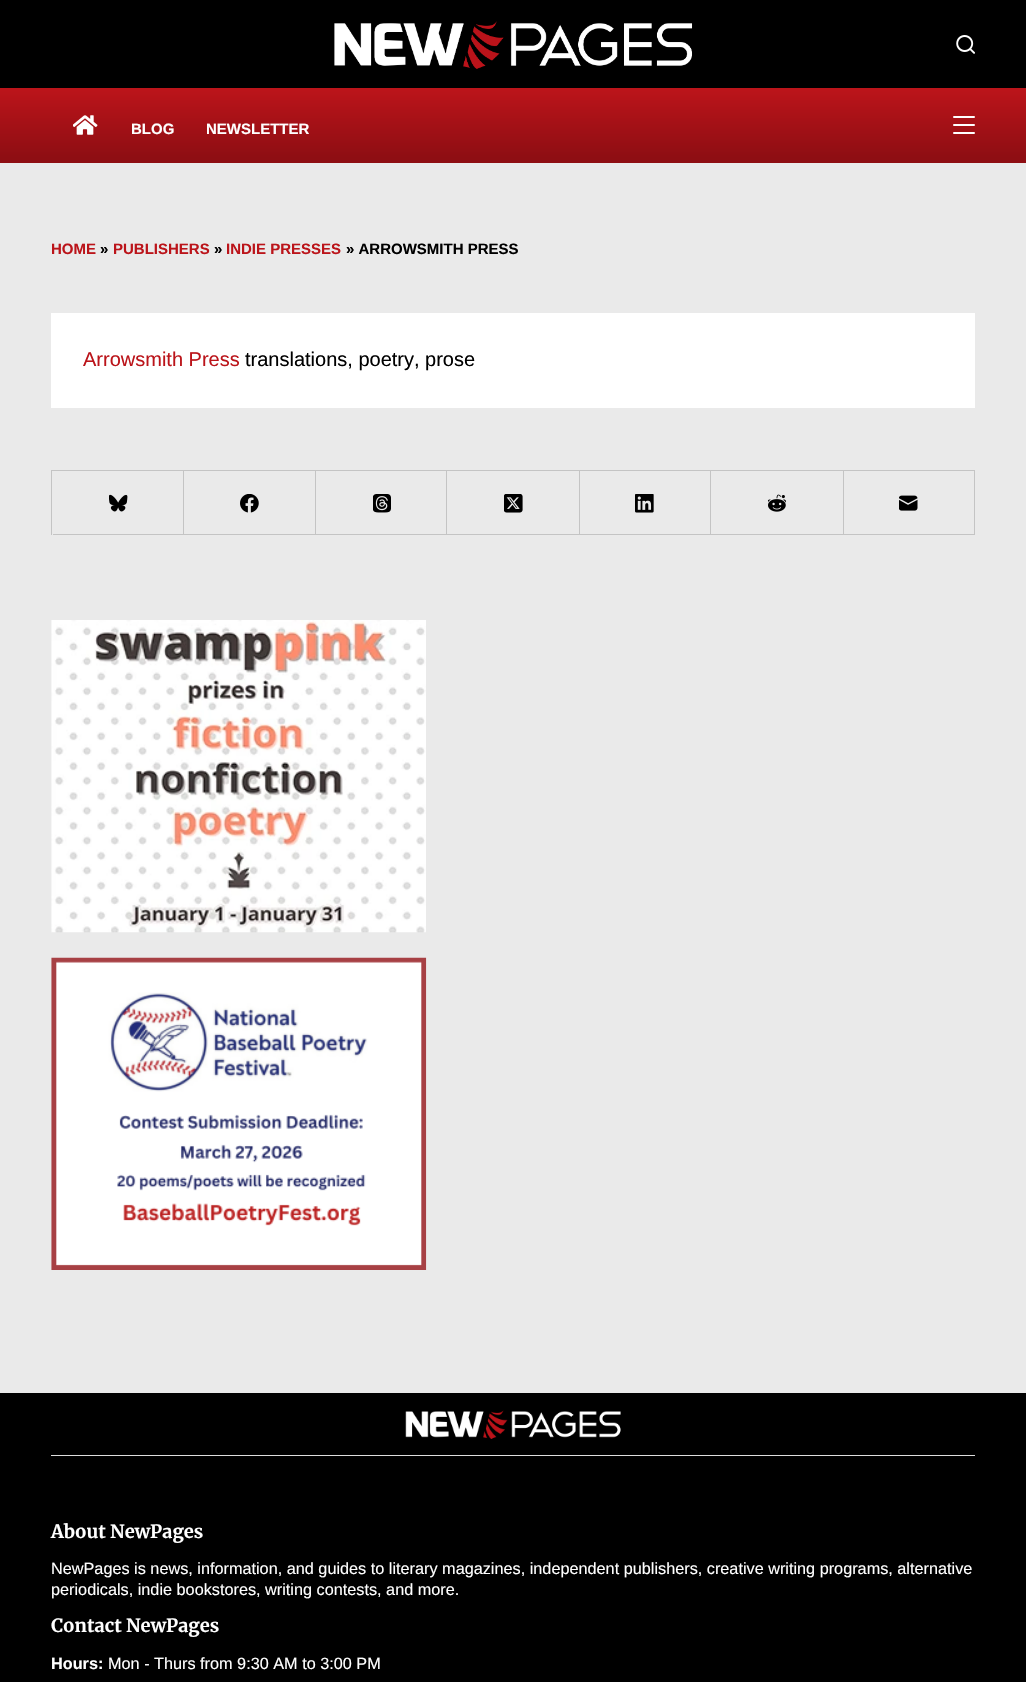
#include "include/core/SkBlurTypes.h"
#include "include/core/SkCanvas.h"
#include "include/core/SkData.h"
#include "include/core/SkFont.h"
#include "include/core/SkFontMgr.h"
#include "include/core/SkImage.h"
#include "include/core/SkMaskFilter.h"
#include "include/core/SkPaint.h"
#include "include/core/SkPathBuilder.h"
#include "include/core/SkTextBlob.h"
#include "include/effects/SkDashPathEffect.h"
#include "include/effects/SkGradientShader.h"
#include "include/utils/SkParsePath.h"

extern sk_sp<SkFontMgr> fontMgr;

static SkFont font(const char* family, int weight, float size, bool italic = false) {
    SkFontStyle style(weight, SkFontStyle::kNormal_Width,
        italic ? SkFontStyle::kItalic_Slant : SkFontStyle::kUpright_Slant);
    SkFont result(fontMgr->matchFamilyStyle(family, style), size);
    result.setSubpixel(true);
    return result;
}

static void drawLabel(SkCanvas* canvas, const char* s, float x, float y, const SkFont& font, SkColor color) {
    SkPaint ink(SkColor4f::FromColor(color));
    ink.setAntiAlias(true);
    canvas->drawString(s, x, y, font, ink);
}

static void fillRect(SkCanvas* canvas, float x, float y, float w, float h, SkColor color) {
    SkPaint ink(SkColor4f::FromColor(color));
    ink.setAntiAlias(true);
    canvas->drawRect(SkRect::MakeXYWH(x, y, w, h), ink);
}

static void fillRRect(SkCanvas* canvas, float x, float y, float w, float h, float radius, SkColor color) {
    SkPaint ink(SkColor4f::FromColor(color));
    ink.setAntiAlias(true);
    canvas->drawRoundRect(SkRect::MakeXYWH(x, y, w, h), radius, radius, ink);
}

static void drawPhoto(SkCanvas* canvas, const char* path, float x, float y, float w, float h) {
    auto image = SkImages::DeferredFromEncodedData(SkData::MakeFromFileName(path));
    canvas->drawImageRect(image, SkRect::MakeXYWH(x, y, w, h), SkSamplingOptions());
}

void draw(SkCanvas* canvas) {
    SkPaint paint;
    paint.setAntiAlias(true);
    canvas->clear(0xFFEAEAEA);
    fillRect(canvas, 0, 0, 1026, 88, 0xFF000000);
    drawPhoto(canvas, "assets/img1.png", 334, 21, 359, 48);
    drawPhoto(canvas, "assets/img2.png", 956, 35, 19, 19);
    {
        const SkColor colors[] = {0xFFBB141A, 0xFF8E0E13};
        const float stops[] = {0.04f, 0.93f};
        const SkPoint ends[] = {{513, 87}, {513, 163}};
        paint.setShader(SkGradientShader::MakeLinear(ends, colors, stops, 2, SkTileMode::kClamp));
        paint.setAlpha(255);
    }
    canvas->drawRect(SkRect::MakeXYWH(0, 88, 1026, 75), paint);
    drawPhoto(canvas, "assets/img3.png", 73, 115, 25, 20);
    SkFont font1 = font("Liberation Sans", 700, 15);
    drawLabel(canvas, "BLOG", 131, 134, font1, 0xFFFFFFFF);
    drawLabel(canvas, "NEWSLETTER", 206, 134, font1, 0xFFFFFFFF);
    fillRRect(canvas, 953, 116, 22, 2, 1, 0xFFFFFFFF);
    fillRRect(canvas, 953, 124, 22, 2, 1, 0xFFFFFFFF);
    fillRRect(canvas, 953, 132, 22, 2, 1, 0xFFFFFFFF);
    drawLabel(canvas, "HOME", 51, 254, font1, 0xFFBB141A);
    drawLabel(canvas, "»", 100, 254, font1, 0xFF000000);
    drawLabel(canvas, "PUBLISHERS", 113, 254, font1, 0xFFBB141A);
    drawLabel(canvas, "»", 214, 254, font1, 0xFF000000);
    drawLabel(canvas, "INDIE PRESSES", 226, 254, font1, 0xFFBB141A);
    drawLabel(canvas, "» ARROWSMITH PRESS", 346, 254, font1, 0xFF000000);
    fillRect(canvas, 51, 313, 924, 95, 0xFFFFFFFF);
    SkFont font2 = font("Liberation Sans", 400, 20);
    drawLabel(canvas, "Arrowsmith Press", 83, 366, font2, 0xFFBB141A);
    drawLabel(canvas, "translations, poetry, prose", 245, 366, font2, 0xFF000000);
    fillRect(canvas, 51, 470, 924, 1, 0xFFC4C4C4);
    fillRect(canvas, 51, 470, 1, 65, 0xFFC4C4C4);
    fillRect(canvas, 183, 471, 1, 64, 0xFFC4C4C4);
    fillRect(canvas, 53, 534, 131, 1, 0xFFC4C4C4);
    drawPhoto(canvas, "assets/img4.png", 109, 494, 19, 18);
    fillRect(canvas, 315, 471, 1, 64, 0xFFC4C4C4);
    fillRect(canvas, 184, 534, 132, 1, 0xFFC4C4C4);
    drawPhoto(canvas, "assets/img5.png", 240, 494, 19, 19);
    fillRect(canvas, 446, 471, 1, 64, 0xFFC4C4C4);
    fillRect(canvas, 316, 534, 132, 1, 0xFFC4C4C4);
    drawPhoto(canvas, "assets/img6.png", 373, 494, 18, 19);
    fillRect(canvas, 579, 471, 1, 64, 0xFFC4C4C4);
    fillRect(canvas, 448, 534, 132, 1, 0xFFC4C4C4);
    drawPhoto(canvas, "assets/img7.png", 504, 494, 19, 19);
    fillRect(canvas, 710, 471, 1, 64, 0xFFC4C4C4);
    fillRect(canvas, 580, 534, 131, 1, 0xFFC4C4C4);
    drawPhoto(canvas, "assets/img8.png", 635, 494, 19, 19);
    fillRect(canvas, 843, 471, 1, 64, 0xFFC4C4C4);
    fillRect(canvas, 711, 534, 133, 1, 0xFFC4C4C4);
    drawPhoto(canvas, "assets/img9.png", 768, 494, 18, 18);
    fillRect(canvas, 974, 471, 1, 64, 0xFFC4C4C4);
    fillRect(canvas, 844, 534, 131, 1, 0xFFC4C4C4);
    drawPhoto(canvas, "assets/img10.png", 899, 495, 19, 16);
    drawPhoto(canvas, "assets/img11.png", 51, 620, 375, 313);
    drawPhoto(canvas, "assets/img12.png", 51, 957, 376, 313);
    fillRect(canvas, 0, 1393, 1026, 289, 0xFF000000);
    fillRect(canvas, 51, 1455, 924, 1, 0xFFDDDDDD);
    drawPhoto(canvas, "assets/img13.png", 405, 1410, 216, 29);
    SkFont font3 = font("Merriweather", 700, 18.25f);
    drawLabel(canvas, "About NewPages", 51, 1538, font3, 0xFFFFFFFF);
    SkFont font4 = font("Liberation Sans", 400, 16.25f);
    drawLabel(canvas, "NewPages is news, information, and guides to literary magazines, independent publishers, creative writing programs, alternative", 51, 1574, font4, 0xFFFFFFFF);
    drawLabel(canvas, "periodicals, indie bookstores, writing contests, and more.", 51, 1595, font4, 0xFFFFFFFF);
    drawLabel(canvas, "Contact NewPages", 51, 1632, font3, 0xFFFFFFFF);
    SkFont font5 = font("Liberation Sans", 700, 16.25f);
    drawLabel(canvas, "Hours:", 51, 1669, font5, 0xFFFFFFFF);
    drawLabel(canvas, "Mon - Thurs from 9:30 AM to 3:00 PM", 108, 1669, font4, 0xFFFFFFFF);
}
